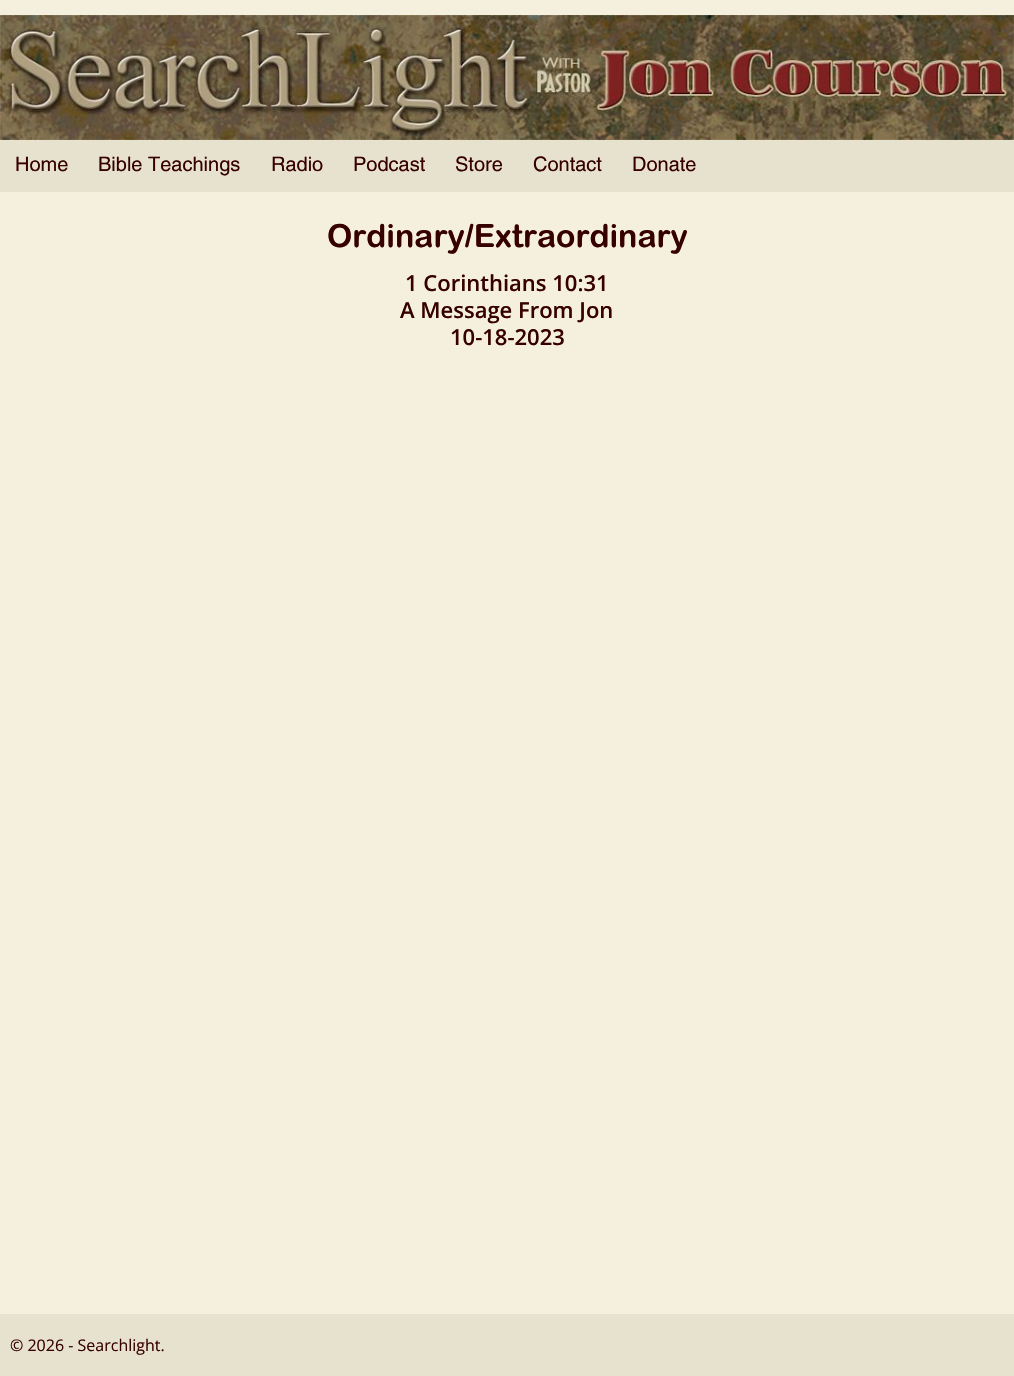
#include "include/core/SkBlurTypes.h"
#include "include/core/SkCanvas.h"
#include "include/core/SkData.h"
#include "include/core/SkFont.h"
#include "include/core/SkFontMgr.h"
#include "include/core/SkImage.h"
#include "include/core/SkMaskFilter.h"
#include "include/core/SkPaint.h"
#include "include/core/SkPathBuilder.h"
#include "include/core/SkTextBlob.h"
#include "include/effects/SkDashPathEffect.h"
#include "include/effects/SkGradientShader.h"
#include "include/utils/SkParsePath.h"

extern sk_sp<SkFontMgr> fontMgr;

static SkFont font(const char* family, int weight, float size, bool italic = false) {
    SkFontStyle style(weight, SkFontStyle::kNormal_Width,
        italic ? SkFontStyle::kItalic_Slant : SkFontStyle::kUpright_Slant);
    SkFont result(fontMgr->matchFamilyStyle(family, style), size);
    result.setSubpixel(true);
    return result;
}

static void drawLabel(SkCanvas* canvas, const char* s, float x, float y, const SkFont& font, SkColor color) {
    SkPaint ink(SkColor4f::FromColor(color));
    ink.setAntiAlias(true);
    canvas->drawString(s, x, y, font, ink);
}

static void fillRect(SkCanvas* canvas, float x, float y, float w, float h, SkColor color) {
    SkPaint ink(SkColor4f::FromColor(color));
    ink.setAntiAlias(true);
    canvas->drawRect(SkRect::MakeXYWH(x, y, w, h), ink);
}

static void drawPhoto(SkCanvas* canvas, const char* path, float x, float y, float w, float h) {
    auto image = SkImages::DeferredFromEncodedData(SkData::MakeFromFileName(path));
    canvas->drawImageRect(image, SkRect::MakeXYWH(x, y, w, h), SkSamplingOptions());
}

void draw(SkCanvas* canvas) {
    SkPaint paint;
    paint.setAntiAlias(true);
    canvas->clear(0xFFF5F0DD);
    drawPhoto(canvas, "assets/img1.png", 0, 15, 1014, 125);
    fillRect(canvas, 0, 140, 1014, 52, 0xFFE7E2CD);
    SkFont font1 = font("Helvetica", 400, 20);
    drawLabel(canvas, "Home", 15, 171, font1, 0xFF370000);
    drawLabel(canvas, "Bible Teachings", 98, 171, font1, 0xFF370000);
    drawLabel(canvas, "Radio", 271, 171, font1, 0xFF370000);
    drawLabel(canvas, "Podcast", 353, 171, font1, 0xFF370000);
    drawLabel(canvas, "Store", 455, 171, font1, 0xFF370000);
    drawLabel(canvas, "Contact", 533, 171, font1, 0xFF370000);
    drawLabel(canvas, "Donate", 632, 171, font1, 0xFF370000);
    SkFont font2 = font("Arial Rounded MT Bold", 700, 32);
    drawLabel(canvas, "Ordinary/Extraordinary", 327, 247, font2, 0xFF370000);
    SkFont font3 = font("Open Sans", 600, 22);
    drawLabel(canvas, "1 Corinthians 10:31", 405, 291, font3, 0xFF370000);
    drawLabel(canvas, "A Message From Jon", 400, 318, font3, 0xFF370000);
    drawLabel(canvas, "10-18-2023", 450, 345, font3, 0xFF370000);
    fillRect(canvas, 0, 1314, 1014, 62, 0xFFE7E2CD);
    SkFont font4 = font("Open Sans", 400, 16);
    drawLabel(canvas, "© 2026 - Searchlight.", 10, 1351, font4, 0xFF370000);
}
